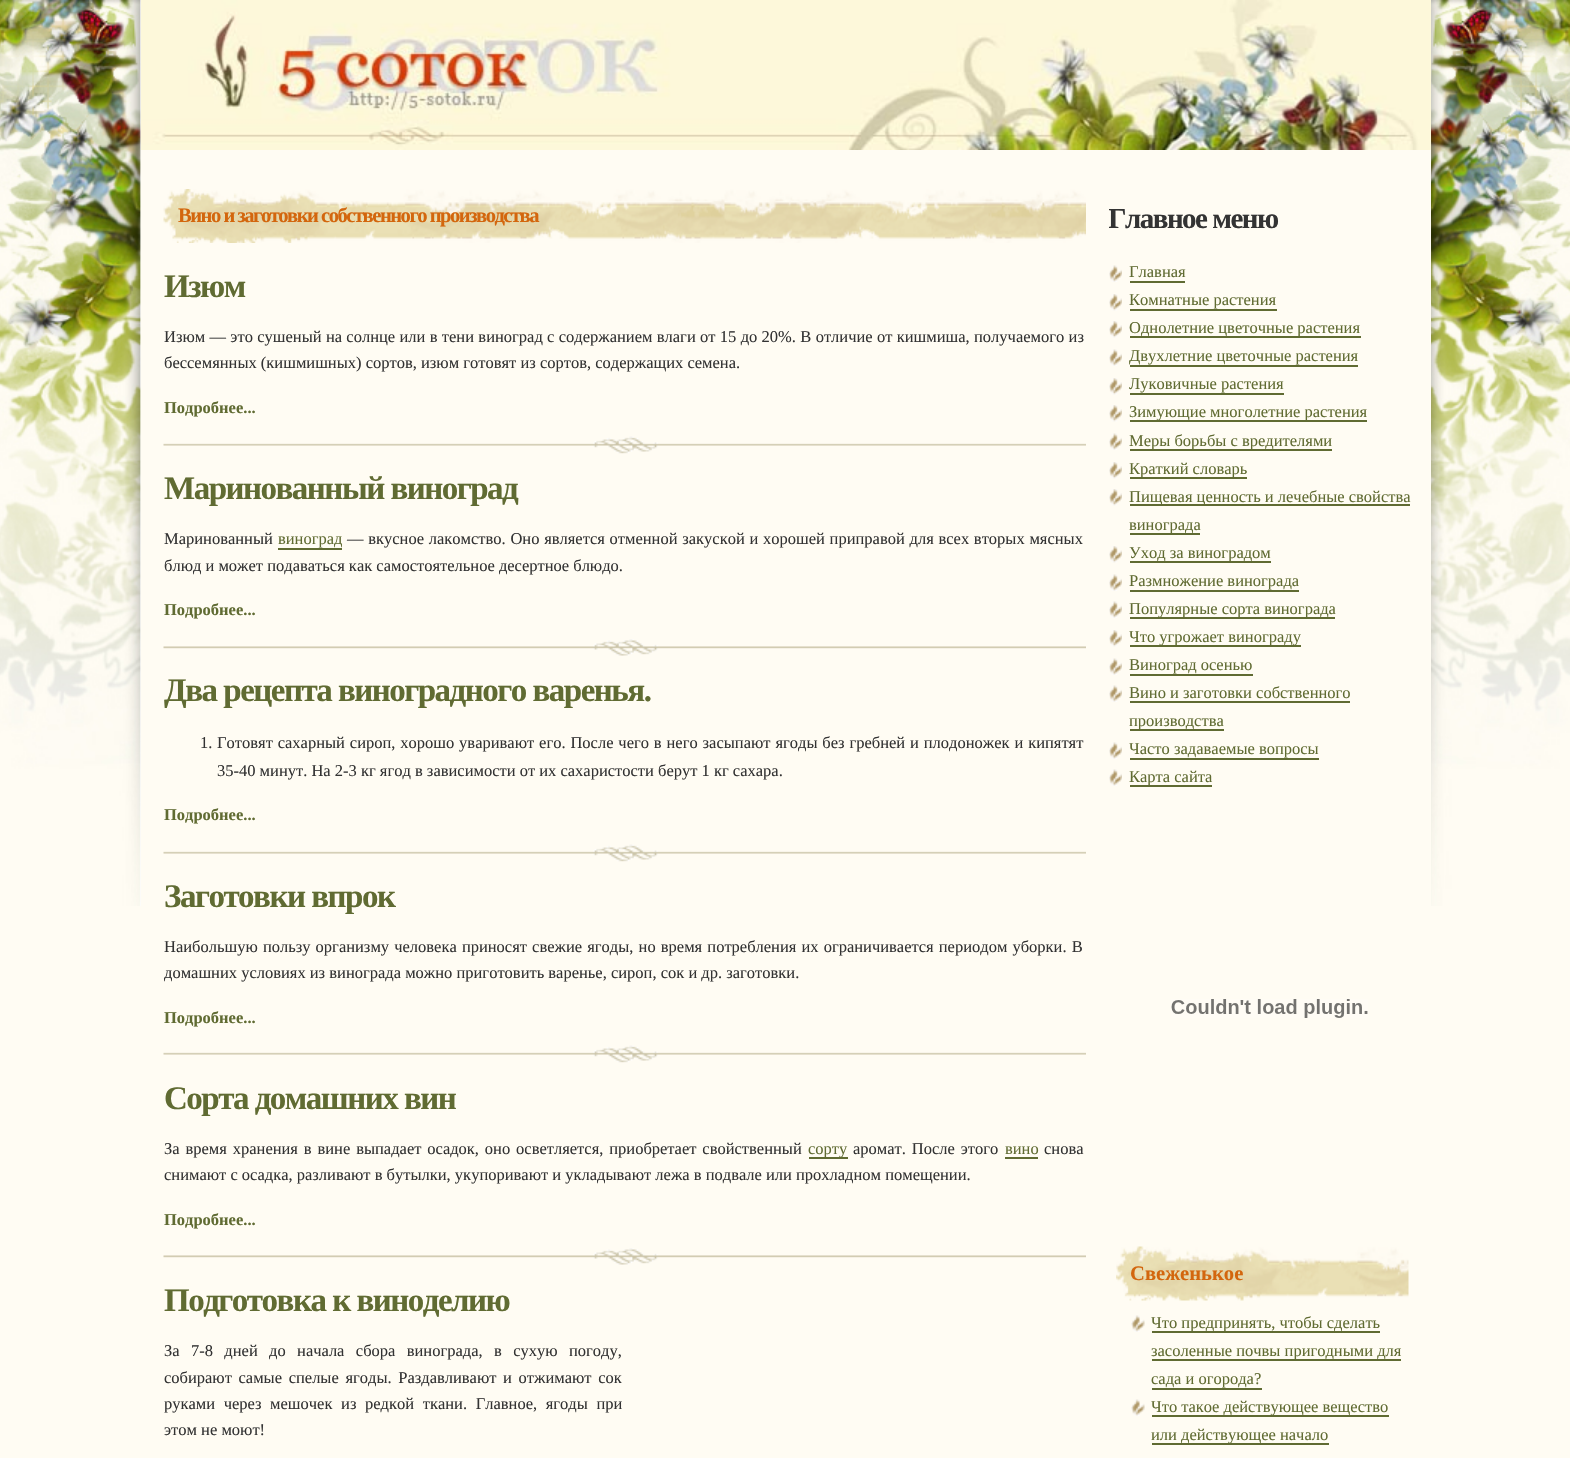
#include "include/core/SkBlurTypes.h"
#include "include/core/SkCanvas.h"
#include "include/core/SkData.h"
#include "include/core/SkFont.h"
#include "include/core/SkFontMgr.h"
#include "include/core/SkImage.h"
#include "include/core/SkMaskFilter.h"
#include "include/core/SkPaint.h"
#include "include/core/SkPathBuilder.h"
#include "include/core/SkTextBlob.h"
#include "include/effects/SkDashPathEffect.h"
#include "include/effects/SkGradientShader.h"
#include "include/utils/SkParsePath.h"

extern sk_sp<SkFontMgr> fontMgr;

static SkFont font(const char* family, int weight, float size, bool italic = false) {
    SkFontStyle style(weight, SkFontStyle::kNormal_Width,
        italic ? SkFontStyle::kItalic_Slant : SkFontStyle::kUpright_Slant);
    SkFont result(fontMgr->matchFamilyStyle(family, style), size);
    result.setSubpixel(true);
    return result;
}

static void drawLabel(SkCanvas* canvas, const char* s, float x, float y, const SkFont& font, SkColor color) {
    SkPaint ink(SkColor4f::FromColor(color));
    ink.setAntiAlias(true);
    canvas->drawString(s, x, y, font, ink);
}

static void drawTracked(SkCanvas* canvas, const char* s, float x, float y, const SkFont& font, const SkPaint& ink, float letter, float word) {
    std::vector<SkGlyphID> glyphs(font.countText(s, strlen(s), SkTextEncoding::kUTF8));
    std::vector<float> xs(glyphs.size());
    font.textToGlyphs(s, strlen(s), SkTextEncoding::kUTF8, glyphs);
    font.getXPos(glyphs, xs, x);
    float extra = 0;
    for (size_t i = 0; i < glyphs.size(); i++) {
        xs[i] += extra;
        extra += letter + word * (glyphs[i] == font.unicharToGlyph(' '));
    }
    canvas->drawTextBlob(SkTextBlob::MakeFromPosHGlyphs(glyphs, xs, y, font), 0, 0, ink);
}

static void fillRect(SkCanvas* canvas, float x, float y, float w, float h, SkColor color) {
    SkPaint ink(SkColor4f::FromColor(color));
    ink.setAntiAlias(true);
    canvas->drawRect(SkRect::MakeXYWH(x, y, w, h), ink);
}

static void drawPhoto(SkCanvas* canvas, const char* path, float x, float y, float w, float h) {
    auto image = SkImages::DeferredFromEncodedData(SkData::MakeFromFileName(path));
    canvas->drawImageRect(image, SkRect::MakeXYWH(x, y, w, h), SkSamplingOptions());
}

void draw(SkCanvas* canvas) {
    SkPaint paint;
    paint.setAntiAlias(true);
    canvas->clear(0xFFFFFCF3);
    drawPhoto(canvas, "assets/img1.png", 0, 0, 1570, 906);
    fillRect(canvas, 141, 150, 1290, 756, 0xFFFFFCF3);
    drawPhoto(canvas, "assets/img2.png", 141, 0, 1290, 150);
    drawPhoto(canvas, "assets/img3.png", 163, 189, 923, 54);
    SkFont font1 = font("Liberation Serif", 700, 20.6f);
    paint.setColor(0xFFD3660D);
    drawTracked(canvas, "Вино и заготовки собственного производства", 178, 222, font1, paint, -1.5f, 0);
    SkFont font2 = font("Liberation Serif", 700, 33);
    paint.setColor(0xFF606B32);
    drawTracked(canvas, "Изюм", 164, 297, font2, paint, -1.5f, 0);
    SkFont font3 = font("Liberation Serif", 400, 16.5f);
    paint.setColor(0xFF333333);
    drawTracked(canvas, "Изюм — это сушеный на солнце или в тени виноград с содержанием влаги от 15 до 20%. В отличие от кишмиша, получаемого из", 164, 342, font3, paint, 0, 0.2f);
    drawLabel(canvas, "бессемянных (кишмишных) сортов, изюм готовят из сортов, содержащих семена.", 164, 368, font3, 0xFF333333);
    SkFont font4 = font("Liberation Serif", 700, 16.5f);
    drawLabel(canvas, "Подробнее...", 164, 413, font4, 0xFF606B32);
    drawPhoto(canvas, "assets/img4.png", 163, 436, 923, 18);
    paint.setColor(0xFF606B32);
    drawTracked(canvas, "Маринованный виноград", 164, 499, font2, paint, -1.5f, 0);
    drawLabel(canvas, "Маринованный", 164, 544, font3, 0xFF333333);
    drawLabel(canvas, "виноград", 278, 544, font3, 0xFF606B32);
    fillRect(canvas, 278, 548, 64, 2, 0xFF606B32);
    paint.setColor(0xFF333333);
    drawTracked(canvas, "— вкусное лакомство. Оно является отменной закуской и хорошей приправой для всех вторых мясных", 347, 544, font3, paint, 0, 0.6f);
    drawLabel(canvas, "блюд и может подаваться как самостоятельное десертное блюдо.", 164, 571, font3, 0xFF333333);
    drawLabel(canvas, "Подробнее...", 164, 615, font4, 0xFF606B32);
    drawPhoto(canvas, "assets/img5.png", 163, 639, 923, 17);
    paint.setColor(0xFF606B32);
    drawTracked(canvas, "Два рецепта виноградного варенья.", 164, 701, font2, paint, -1.5f, 0);
    drawLabel(canvas, "1.", 200, 748, font3, 0xFF333333);
    paint.setColor(0xFF333333);
    drawTracked(canvas, "Готовят сахарный сироп, хорошо уваривают его. После чего в него засыпают ягоды без гребней и плодоножек и кипятят", 217, 748, font3, paint, 0, 0.75f);
    drawLabel(canvas, "35-40 минут. На 2-3 кг ягод в зависимости от их сахаристости берут 1 кг сахара.", 217, 776, font3, 0xFF333333);
    drawLabel(canvas, "Подробнее...", 164, 820, font4, 0xFF606B32);
    drawPhoto(canvas, "assets/img4.png", 163, 844, 923, 18);
    paint.setColor(0xFF606B32);
    drawTracked(canvas, "Заготовки впрок", 164, 907, font2, paint, -1.5f, 0);
    paint.setColor(0xFF333333);
    drawTracked(canvas, "Наибольшую пользу организму человека приносят свежие ягоды, но время потребления их ограничивается периодом уборки. В", 164, 952, font3, paint, 0, 1);
    drawLabel(canvas, "домашних условиях из винограда можно приготовить варенье, сироп, сок и др. заготовки.", 164, 978, font3, 0xFF333333);
    drawLabel(canvas, "Подробнее...", 164, 1023, font4, 0xFF606B32);
    drawPhoto(canvas, "assets/img4.png", 163, 1045, 923, 18);
    paint.setColor(0xFF606B32);
    drawTracked(canvas, "Сорта домашних вин", 164, 1109, font2, paint, -1.5f, 0);
    paint.setColor(0xFF333333);
    drawTracked(canvas, "За время хранения в вине выпадает осадок, оно осветляется, приобретает свойственный", 164, 1154, font3, paint, 0, 1.75f);
    fillRect(canvas, 809, 1157, 39, 2, 0xFF606B32);
    drawLabel(canvas, "сорту", 808, 1154, font3, 0xFF606B32);
    drawTracked(canvas, "аромат. После этого", 853, 1154, font3, paint, 0, 1.75f);
    drawLabel(canvas, "вино", 1005, 1154, font3, 0xFF606B32);
    fillRect(canvas, 1005, 1157, 33, 2, 0xFF606B32);
    drawLabel(canvas, "снова", 1044, 1154, font3, 0xFF333333);
    drawLabel(canvas, "снимают с осадка, разливают в бутылки, укупоривают и укладывают лежа в подвале или прохладном помещении.", 164, 1180, font3, 0xFF333333);
    drawLabel(canvas, "Подробнее...", 164, 1225, font4, 0xFF606B32);
    drawPhoto(canvas, "assets/img5.png", 163, 1248, 923, 17);
    paint.setColor(0xFF606B32);
    drawTracked(canvas, "Подготовка к виноделию", 164, 1311, font2, paint, -1.5f, 0);
    paint.setColor(0xFF333333);
    drawTracked(canvas, "За 7-8 дней до начала сбора винограда, в сухую погоду,", 164, 1356, font3, paint, 0, 7.25f);
    drawTracked(canvas, "собирают самые спелые ягоды. Раздавливают и отжимают сок", 164, 1383, font3, paint, 0, 2.5f);
    drawTracked(canvas, "руками через мешочек из редкой ткани. Главное, ягоды при", 164, 1409, font3, paint, 0, 4.5f);
    drawLabel(canvas, "этом не моют!", 164, 1435, font3, 0xFF333333);
    canvas->save();
    canvas->clipRect(SkRect::MakeXYWH(1109, 182, 322, 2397));
    SkFont font5 = font("Liberation Serif", 700, 29);
    drawTracked(canvas, "Главное меню", 1108, 228, font5, paint, -1.5f, 0);
    canvas->restore();
    drawPhoto(canvas, "assets/img6.png", 1109, 265, 13, 17);
    drawLabel(canvas, "Главная", 1129, 277, font3, 0xFF606B32);
    fillRect(canvas, 1130, 281, 55, 2, 0xFF606B32);
    drawPhoto(canvas, "assets/img7.png", 1109, 294, 13, 17);
    drawLabel(canvas, "Комнатные растения", 1129, 305, font3, 0xFF606B32);
    fillRect(canvas, 1130, 309, 147, 2, 0xFF606B32);
    drawPhoto(canvas, "assets/img7.png", 1109, 321, 13, 17);
    fillRect(canvas, 1130, 336, 231, 2, 0xFF606B32);
    drawLabel(canvas, "Однолетние цветочные растения", 1129, 333, font3, 0xFF606B32);
    drawPhoto(canvas, "assets/img6.png", 1109, 349, 13, 17);
    drawLabel(canvas, "Двухлетние цветочные растения", 1129, 361, font3, 0xFF606B32);
    fillRect(canvas, 1130, 365, 228, 2, 0xFF606B32);
    drawPhoto(canvas, "assets/img7.png", 1109, 378, 13, 17);
    drawLabel(canvas, "Луковичные растения", 1129, 389, font3, 0xFF606B32);
    fillRect(canvas, 1130, 393, 154, 2, 0xFF606B32);
    drawPhoto(canvas, "assets/img7.png", 1109, 405, 13, 17);
    fillRect(canvas, 1130, 420, 237, 2, 0xFF606B32);
    drawLabel(canvas, "Зимующие многолетние растения", 1129, 417, font3, 0xFF606B32);
    drawPhoto(canvas, "assets/img6.png", 1109, 433, 13, 17);
    fillRect(canvas, 1130, 449, 202, 2, 0xFF606B32);
    drawLabel(canvas, "Меры борьбы с вредителями", 1129, 446, font3, 0xFF606B32);
    drawPhoto(canvas, "assets/img7.png", 1109, 462, 13, 17);
    fillRect(canvas, 1130, 477, 117, 2, 0xFF606B32);
    drawLabel(canvas, "Краткий словарь", 1129, 474, font3, 0xFF606B32);
    drawPhoto(canvas, "assets/img7.png", 1109, 489, 13, 17);
    fillRect(canvas, 1130, 504, 280, 2, 0xFF606B32);
    drawLabel(canvas, "Пищевая ценность и лечебные свойства", 1129, 502, font3, 0xFF606B32);
    fillRect(canvas, 1130, 533, 70, 2, 0xFF606B32);
    drawLabel(canvas, "винограда", 1129, 530, font3, 0xFF606B32);
    drawPhoto(canvas, "assets/img7.png", 1109, 546, 13, 17);
    fillRect(canvas, 1130, 561, 141, 2, 0xFF606B32);
    drawLabel(canvas, "Уход за виноградом", 1129, 558, font3, 0xFF606B32);
    drawPhoto(canvas, "assets/img6.png", 1109, 574, 13, 17);
    drawLabel(canvas, "Размножение винограда", 1129, 586, font3, 0xFF606B32);
    fillRect(canvas, 1130, 590, 169, 2, 0xFF606B32);
    drawPhoto(canvas, "assets/img6.png", 1109, 601, 13, 17);
    fillRect(canvas, 1130, 617, 205, 2, 0xFF606B32);
    drawLabel(canvas, "Популярные сорта винограда", 1129, 614, font3, 0xFF606B32);
    drawPhoto(canvas, "assets/img7.png", 1109, 630, 13, 17);
    fillRect(canvas, 1130, 645, 171, 2, 0xFF606B32);
    drawLabel(canvas, "Что угрожает винограду", 1129, 642, font3, 0xFF606B32);
    drawPhoto(canvas, "assets/img6.png", 1109, 658, 13, 17);
    drawLabel(canvas, "Виноград осенью", 1129, 670, font3, 0xFF606B32);
    fillRect(canvas, 1130, 674, 123, 2, 0xFF606B32);
    drawPhoto(canvas, "assets/img6.png", 1109, 685, 13, 17);
    drawLabel(canvas, "Вино и заготовки собственного", 1129, 698, font3, 0xFF606B32);
    fillRect(canvas, 1130, 701, 220, 2, 0xFF606B32);
    fillRect(canvas, 1130, 729, 94, 2, 0xFF606B32);
    drawLabel(canvas, "производства", 1129, 726, font3, 0xFF606B32);
    drawPhoto(canvas, "assets/img6.png", 1109, 742, 13, 17);
    drawLabel(canvas, "Часто задаваемые вопросы", 1129, 754, font3, 0xFF606B32);
    fillRect(canvas, 1130, 758, 189, 2, 0xFF606B32);
    drawPhoto(canvas, "assets/img6.png", 1109, 769, 13, 17);
    fillRect(canvas, 1130, 785, 82, 2, 0xFF606B32);
    drawLabel(canvas, "Карта сайта", 1129, 782, font3, 0xFF606B32);
    drawPhoto(canvas, "assets/img8.png", 1171, 999, 197, 19);
    drawPhoto(canvas, "assets/img9.png", 1116, 1246, 293, 55);
    drawLabel(canvas, "Свеженькое", 1130, 1280, font1, 0xFFD3660D);
    drawPhoto(canvas, "assets/img10.png", 1131, 1315, 14, 17);
    fillRect(canvas, 1152, 1331, 228, 2, 0xFF606B32);
    drawLabel(canvas, "Что предпринять, чтобы сделать", 1151, 1328, font3, 0xFF606B32);
    fillRect(canvas, 1152, 1359, 249, 2, 0xFF606B32);
    drawLabel(canvas, "засоленные почвы пригодными для", 1151, 1356, font3, 0xFF606B32);
    drawLabel(canvas, "сада и огорода?", 1151, 1384, font3, 0xFF606B32);
    fillRect(canvas, 1152, 1388, 110, 2, 0xFF606B32);
    drawPhoto(canvas, "assets/img10.png", 1131, 1399, 14, 17);
    fillRect(canvas, 1152, 1415, 237, 2, 0xFF606B32);
    drawLabel(canvas, "Что такое действующее вещество", 1151, 1412, font3, 0xFF606B32);
    fillRect(canvas, 1152, 1443, 177, 2, 0xFF606B32);
    drawLabel(canvas, "или действующее начало", 1151, 1440, font3, 0xFF606B32);
}
